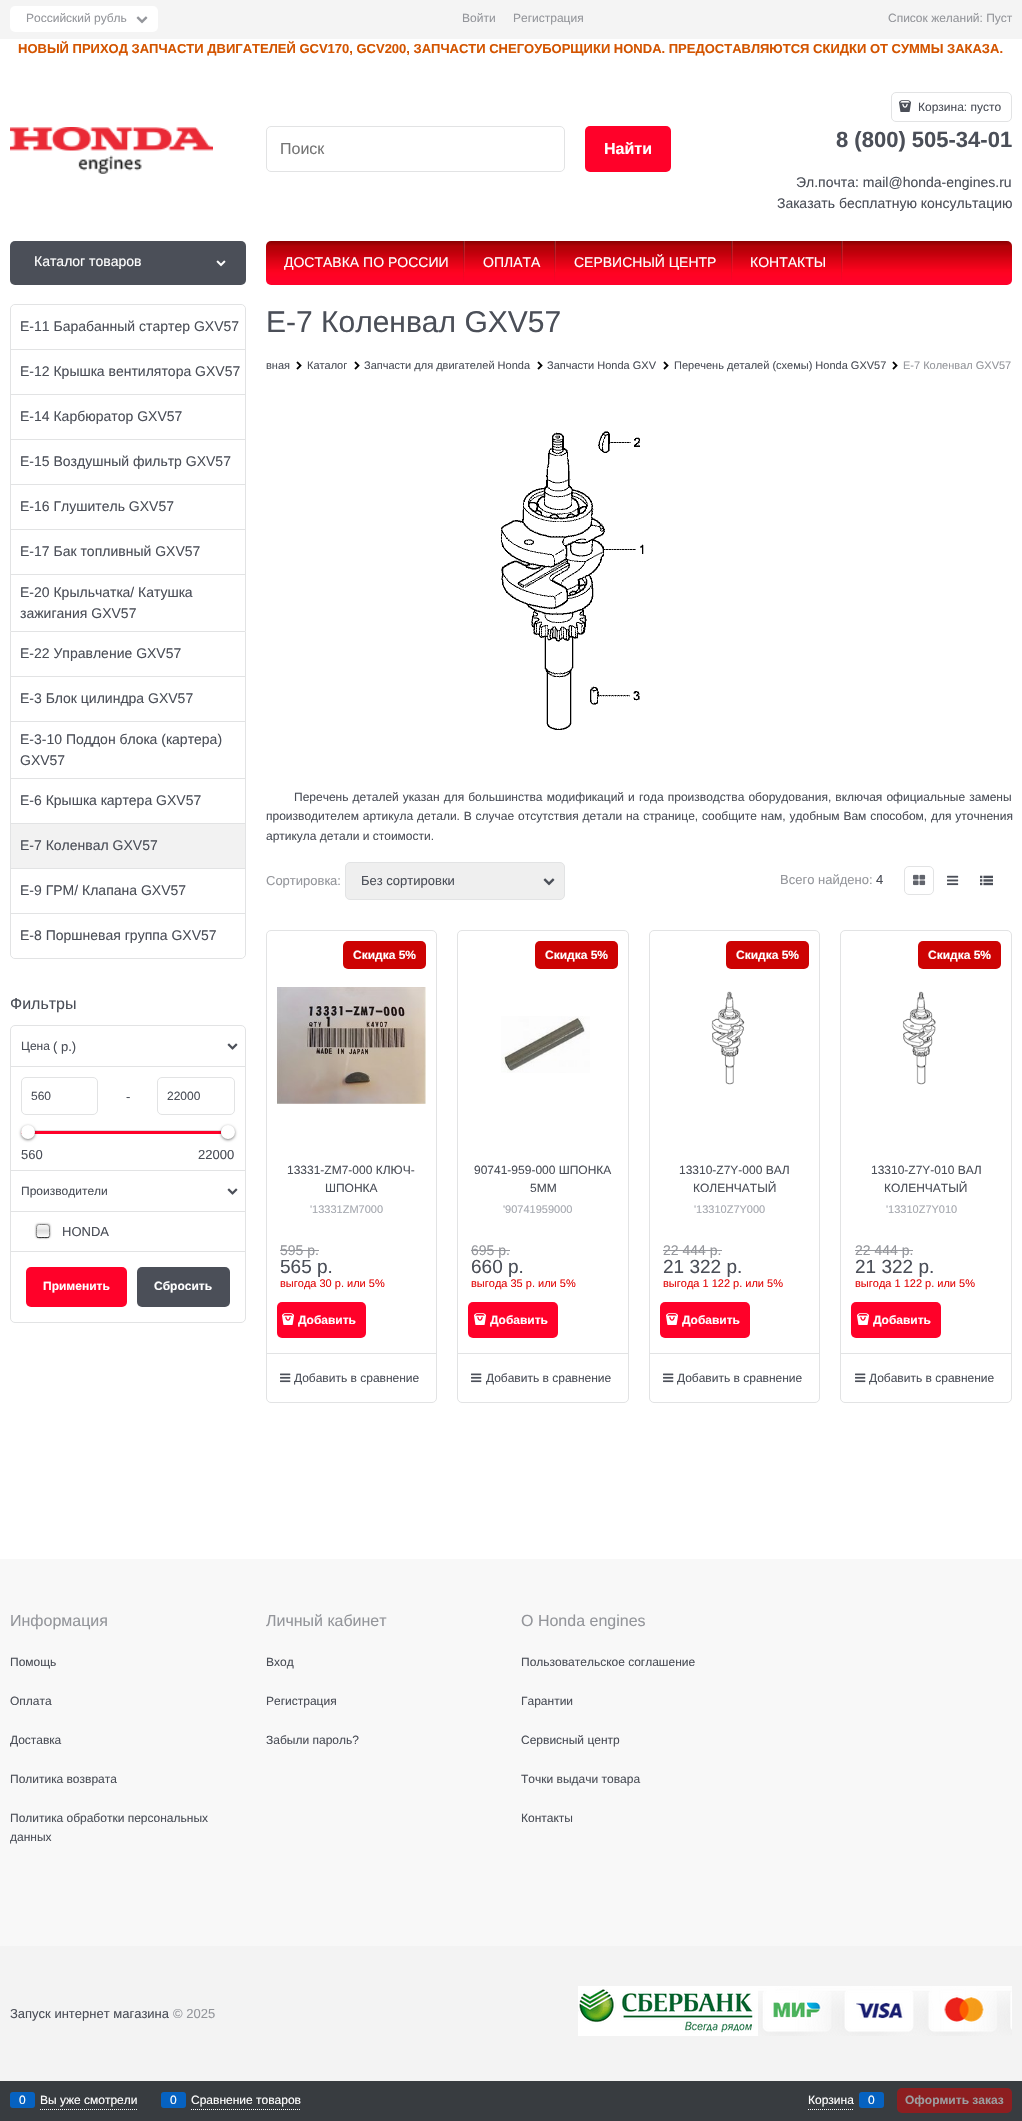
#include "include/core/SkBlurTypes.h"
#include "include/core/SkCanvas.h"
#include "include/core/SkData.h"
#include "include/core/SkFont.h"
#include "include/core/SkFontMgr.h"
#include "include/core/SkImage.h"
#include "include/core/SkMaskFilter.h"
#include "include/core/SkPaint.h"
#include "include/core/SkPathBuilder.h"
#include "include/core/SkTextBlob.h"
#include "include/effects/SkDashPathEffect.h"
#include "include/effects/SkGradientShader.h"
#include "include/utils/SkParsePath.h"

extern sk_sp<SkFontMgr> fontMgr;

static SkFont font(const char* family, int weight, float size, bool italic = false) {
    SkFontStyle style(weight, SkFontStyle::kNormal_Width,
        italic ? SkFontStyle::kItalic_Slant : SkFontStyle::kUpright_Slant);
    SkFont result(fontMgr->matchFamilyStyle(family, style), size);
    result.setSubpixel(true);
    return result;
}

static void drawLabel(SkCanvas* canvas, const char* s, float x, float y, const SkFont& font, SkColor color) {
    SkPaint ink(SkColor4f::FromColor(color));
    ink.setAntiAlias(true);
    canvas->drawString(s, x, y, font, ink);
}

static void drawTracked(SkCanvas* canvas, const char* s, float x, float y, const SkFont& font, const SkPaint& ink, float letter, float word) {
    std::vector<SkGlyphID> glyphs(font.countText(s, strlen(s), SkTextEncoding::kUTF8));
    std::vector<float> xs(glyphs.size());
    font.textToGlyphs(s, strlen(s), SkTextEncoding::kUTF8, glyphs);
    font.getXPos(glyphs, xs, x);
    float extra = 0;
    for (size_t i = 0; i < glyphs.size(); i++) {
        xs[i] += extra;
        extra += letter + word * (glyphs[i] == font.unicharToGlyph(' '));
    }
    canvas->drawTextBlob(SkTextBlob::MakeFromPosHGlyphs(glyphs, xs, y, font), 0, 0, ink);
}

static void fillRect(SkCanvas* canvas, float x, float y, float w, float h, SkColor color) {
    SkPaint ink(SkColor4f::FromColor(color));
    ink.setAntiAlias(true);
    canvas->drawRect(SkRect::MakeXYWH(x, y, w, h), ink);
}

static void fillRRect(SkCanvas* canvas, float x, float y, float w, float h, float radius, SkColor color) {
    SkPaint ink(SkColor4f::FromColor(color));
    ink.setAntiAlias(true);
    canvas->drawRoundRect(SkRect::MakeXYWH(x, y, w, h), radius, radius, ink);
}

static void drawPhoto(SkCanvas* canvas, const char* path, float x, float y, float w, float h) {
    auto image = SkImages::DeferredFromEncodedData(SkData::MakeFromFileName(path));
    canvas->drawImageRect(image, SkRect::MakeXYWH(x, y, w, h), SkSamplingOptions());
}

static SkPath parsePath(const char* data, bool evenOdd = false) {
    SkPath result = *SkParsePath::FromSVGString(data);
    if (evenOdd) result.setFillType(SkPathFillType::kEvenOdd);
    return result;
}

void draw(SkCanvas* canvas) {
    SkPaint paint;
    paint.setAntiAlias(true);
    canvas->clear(0xFFFFFFFF);
    fillRect(canvas, 0, 0, 1022, 39, 0xFFF4F4F4);
    fillRRect(canvas, 10, 6, 148, 26, 5, 0xFFFFFFFF);
    SkFont font1 = font("Liberation Sans", 400, 12);
    drawLabel(canvas, "Российский рубль", 26, 22, font1, 0xFF94969B);
    drawPhoto(canvas, "assets/img1.png", 136, 16, 12, 8);
    drawLabel(canvas, "Войти", 462, 22, font1, 0xFF94969B);
    drawLabel(canvas, "Регистрация", 513, 22, font1, 0xFF94969B);
    drawLabel(canvas, "Список желаний: Пуст", 888, 22, font1, 0xFF94969B);
    SkFont font2 = font("Liberation Sans", 700, 13);
    drawLabel(canvas, "НОВЫЙ ПРИХОД ЗАПЧАСТИ ДВИГАТЕЛЕЙ GCV170, GCV200, ЗАПЧАСТИ СНЕГОУБОРЩИКИ HONDA. ПРЕДОСТАВЛЯЮТСЯ СКИДКИ ОТ СУММЫ ЗАКАЗА.", 18, 53, font2, 0xFFD35400);
    drawPhoto(canvas, "assets/img2.png", 10, 127, 203, 47);
    paint.setStroke(true);
    paint.setStrokeWidth(1);
    paint.setColor(0xFFE2E3E4);
    canvas->drawRoundRect(SkRect::MakeXYWH(266.5f, 126.5f, 298, 45), 4.5f, 4.5f, paint);
    SkFont font3 = font("Liberation Sans", 400, 16);
    drawLabel(canvas, "Поиск", 280, 154, font3, 0xFF757575);
    fillRRect(canvas, 585, 126, 86, 46, 5, 0xFFFF0129);
    SkFont font4 = font("Liberation Sans", 700, 16);
    drawLabel(canvas, "Найти", 604, 154, font4, 0xFFFFFFFF);
    canvas->drawRoundRect(SkRect::MakeXYWH(891.5f, 92.5f, 120, 29), 4.5f, 4.5f, paint);
    drawPhoto(canvas, "assets/img3.png", 899, 100, 12, 12);
    drawLabel(canvas, "Корзина: пусто", 918, 111, font1, 0xFF4B4F58);
    SkFont font5 = font("Liberation Sans", 700, 22);
    drawLabel(canvas, "8 (800) 505-34-01", 836, 147, font5, 0xFF4B4F58);
    SkFont font6 = font("Liberation Sans", 400, 14);
    drawLabel(canvas, "Эл.почта: mail@honda-engines.ru", 796, 187, font6, 0xFF4B4F58);
    drawLabel(canvas, "Заказать бесплатную консультацию", 777, 208, font6, 0xFF4B4F58);
    fillRRect(canvas, 10, 241, 236, 44, 5, 0xFF4B4F58);
    drawLabel(canvas, "Каталог товаров", 34, 266, font6, 0xFFFFFFFF);
    drawPhoto(canvas, "assets/img4.png", 216, 260, 10, 7);
    paint.setStroke(false);
    {
        const SkColor colors[] = {0xFF880002, 0xFFAF0206, 0xFFB40107, 0xFFB60108, 0xFFC8000D, 0xFFD30313, 0xFFD90212, 0xFFF2021B, 0xFFF9031C, 0xFFFF0322, 0xFFFF012B, 0xFFFF0129};
        const float stops[] = {0, 0.11f, 0.14f, 0.19f, 0.32f, 0.41f, 0.43f, 0.62f, 0.65f, 0.73f, 0.95f, 1};
        const SkPoint ends[] = {{639, 241}, {639, 285}};
        paint.setShader(SkGradientShader::MakeLinear(ends, colors, stops, 12, SkTileMode::kClamp));
        paint.setAlpha(255);
    }
    canvas->drawRoundRect(SkRect::MakeXYWH(266, 241, 746, 44), 5, 5, paint);
    drawLabel(canvas, "ДОСТАВКА ПО РОССИИ", 284, 267, font6, 0xFFFFFFFF);
    {
        const SkColor colors[] = {0x24FFFFFF, 0x05FFFFFF, 0x00FFFFFF};
        const float stops[] = {0, 0.72f, 1};
        const SkPoint ends[] = {{465, 241}, {465, 285}};
        paint.setShader(SkGradientShader::MakeLinear(ends, colors, stops, 3, SkTileMode::kClamp));
        paint.setAlpha(255);
    }
    canvas->drawRect(SkRect::MakeXYWH(464, 241, 1, 31), paint);
    {
        const SkColor colors[] = {0x63393939, 0x54393939, 0x1F393939, 0x03393939, 0x03FFFFFF, 0x00FFFFFF};
        const float stops[] = {0, 0.17f, 0.61f, 0.96f, 0.98f, 1};
        const SkPoint ends[] = {{464, 241}, {464, 285}};
        paint.setShader(SkGradientShader::MakeLinear(ends, colors, stops, 6, SkTileMode::kClamp));
        paint.setAlpha(255);
    }
    canvas->drawRect(SkRect::MakeXYWH(463, 241, 1, 44), paint);
    drawLabel(canvas, "ОПЛАТА", 483, 267, font6, 0xFFFFFFFF);
    {
        const SkColor colors[] = {0x24FFFFFF, 0x05FFFFFF, 0x00FFFFFF};
        const float stops[] = {0, 0.72f, 1};
        const SkPoint ends[] = {{556, 241}, {556, 285}};
        paint.setShader(SkGradientShader::MakeLinear(ends, colors, stops, 3, SkTileMode::kClamp));
        paint.setAlpha(255);
    }
    canvas->drawRect(SkRect::MakeXYWH(555, 241, 1, 31), paint);
    {
        const SkColor colors[] = {0x63393939, 0x54393939, 0x1F393939, 0x03393939, 0x03FFFFFF, 0x00FFFFFF};
        const float stops[] = {0, 0.17f, 0.61f, 0.96f, 0.98f, 1};
        const SkPoint ends[] = {{555, 241}, {555, 285}};
        paint.setShader(SkGradientShader::MakeLinear(ends, colors, stops, 6, SkTileMode::kClamp));
        paint.setAlpha(255);
    }
    canvas->drawRect(SkRect::MakeXYWH(554, 241, 1, 44), paint);
    drawLabel(canvas, "СЕРВИСНЫЙ ЦЕНТР", 574, 267, font6, 0xFFFFFFFF);
    {
        const SkColor colors[] = {0x24FFFFFF, 0x05FFFFFF, 0x00FFFFFF};
        const float stops[] = {0, 0.72f, 1};
        const SkPoint ends[] = {{733, 241}, {733, 285}};
        paint.setShader(SkGradientShader::MakeLinear(ends, colors, stops, 3, SkTileMode::kClamp));
        paint.setAlpha(255);
    }
    canvas->drawRect(SkRect::MakeXYWH(732, 241, 1, 31), paint);
    {
        const SkColor colors[] = {0x63393939, 0x54393939, 0x1F393939, 0x03393939, 0x03FFFFFF, 0x00FFFFFF};
        const float stops[] = {0, 0.17f, 0.61f, 0.96f, 0.98f, 1};
        const SkPoint ends[] = {{732, 241}, {732, 285}};
        paint.setShader(SkGradientShader::MakeLinear(ends, colors, stops, 6, SkTileMode::kClamp));
        paint.setAlpha(255);
    }
    canvas->drawRect(SkRect::MakeXYWH(731, 241, 1, 44), paint);
    drawLabel(canvas, "КОНТАКТЫ", 750, 267, font6, 0xFFFFFFFF);
    {
        const SkColor colors[] = {0x24FFFFFF, 0x05FFFFFF, 0x00FFFFFF};
        const float stops[] = {0, 0.72f, 1};
        const SkPoint ends[] = {{843, 241}, {843, 285}};
        paint.setShader(SkGradientShader::MakeLinear(ends, colors, stops, 3, SkTileMode::kClamp));
        paint.setAlpha(255);
    }
    canvas->drawRect(SkRect::MakeXYWH(842, 241, 1, 31), paint);
    {
        const SkColor colors[] = {0x63393939, 0x54393939, 0x1F393939, 0x03393939, 0x03FFFFFF, 0x00FFFFFF};
        const float stops[] = {0, 0.17f, 0.61f, 0.96f, 0.98f, 1};
        const SkPoint ends[] = {{842, 241}, {842, 285}};
        paint.setShader(SkGradientShader::MakeLinear(ends, colors, stops, 6, SkTileMode::kClamp));
        paint.setAlpha(255);
    }
    canvas->drawRect(SkRect::MakeXYWH(841, 241, 1, 44), paint);
    paint.setStroke(true);
    paint.setShader(nullptr);
    paint.setColor(0xFFE2E3E4);
    canvas->drawRoundRect(SkRect::MakeXYWH(10.5f, 304.5f, 235, 654), 4.5f, 4.5f, paint);
    fillRect(canvas, 11, 349, 234, 1, 0xFFE2E3E4);
    paint.setStroke(false);
    paint.setColor(0xFFFFFFFF);
    canvas->drawPath(parsePath("M16 305H240C243 305 245 307 245 310V349H11V310C11 307 13 305 16 305Z"), paint);
    drawLabel(canvas, "E-11 Барабанный стартер GXV57", 20, 331, font6, 0xFF4B4F58);
    fillRect(canvas, 11, 394, 234, 1, 0xFFE2E3E4);
    drawLabel(canvas, "E-12 Крышка вентилятора GXV57", 20, 376, font6, 0xFF4B4F58);
    fillRect(canvas, 11, 439, 234, 1, 0xFFE2E3E4);
    drawLabel(canvas, "E-14 Карбюратор GXV57", 20, 421, font6, 0xFF4B4F58);
    fillRect(canvas, 11, 484, 234, 1, 0xFFE2E3E4);
    drawLabel(canvas, "E-15 Воздушный фильтр GXV57", 20, 466, font6, 0xFF4B4F58);
    fillRect(canvas, 11, 529, 234, 1, 0xFFE2E3E4);
    drawLabel(canvas, "E-16 Глушитель GXV57", 20, 511, font6, 0xFF4B4F58);
    fillRect(canvas, 11, 574, 234, 1, 0xFFE2E3E4);
    drawLabel(canvas, "E-17 Бак топливный GXV57", 20, 556, font6, 0xFF4B4F58);
    fillRect(canvas, 11, 631, 234, 1, 0xFFE2E3E4);
    drawLabel(canvas, "E-20 Крыльчатка/ Катушка", 20, 597, font6, 0xFF4B4F58);
    drawLabel(canvas, "зажигания GXV57", 20, 618, font6, 0xFF4B4F58);
    fillRect(canvas, 11, 676, 234, 1, 0xFFE2E3E4);
    drawLabel(canvas, "E-22 Управление GXV57", 20, 658, font6, 0xFF4B4F58);
    fillRect(canvas, 11, 721, 234, 1, 0xFFE2E3E4);
    drawLabel(canvas, "E-3 Блок цилиндра GXV57", 20, 703, font6, 0xFF4B4F58);
    fillRect(canvas, 11, 778, 234, 1, 0xFFE2E3E4);
    drawLabel(canvas, "E-3-10 Поддон блока (картера)", 20, 744, font6, 0xFF4B4F58);
    drawLabel(canvas, "GXV57", 20, 765, font6, 0xFF4B4F58);
    fillRect(canvas, 11, 823, 234, 1, 0xFFE2E3E4);
    drawLabel(canvas, "E-6 Крышка картера GXV57", 20, 805, font6, 0xFF4B4F58);
    fillRect(canvas, 11, 868, 234, 1, 0xFFE2E3E4);
    fillRect(canvas, 11, 824, 234, 44, 0xFFF2F2F2);
    drawLabel(canvas, "E-7 Коленвал GXV57", 20, 850, font6, 0xFF4B4F58);
    fillRect(canvas, 11, 913, 234, 1, 0xFFE2E3E4);
    drawLabel(canvas, "E-9 ГРМ/ Клапана GXV57", 20, 895, font6, 0xFF4B4F58);
    canvas->drawPath(parsePath("M11 914H245V953C245 956 243 958 240 958H16C13 958 11 956 11 953Z"), paint);
    drawLabel(canvas, "E-8 Поршневая группа GXV57", 20, 940, font6, 0xFF4B4F58);
    drawLabel(canvas, "Фильтры", 10, 1009, font3, 0xFF4B4F58);
    paint.setStroke(true);
    paint.setColor(0xFFE2E3E4);
    canvas->drawRoundRect(SkRect::MakeXYWH(10.5f, 1025.5f, 235, 297), 4.5f, 4.5f, paint);
    drawLabel(canvas, "Цена", 21, 1050, font1, 0xFF4B4F58);
    SkFont font7 = font("Liberation Sans", 400, 13);
    drawLabel(canvas, "( р.)", 53, 1051, font7, 0xFF4B4F58);
    drawPhoto(canvas, "assets/img5.png", 227, 1043, 11, 7);
    fillRect(canvas, 11, 1066, 234, 1, 0xFFE2E3E4);
    canvas->drawRoundRect(SkRect::MakeXYWH(21.5f, 1077.5f, 76, 37), 4.5f, 4.5f, paint);
    drawLabel(canvas, "560", 31, 1100, font1, 0xFF4B4F58);
    drawLabel(canvas, "-", 126, 1101, font7, 0xFF4B4F58);
    canvas->drawRoundRect(SkRect::MakeXYWH(157.5f, 1077.5f, 77, 37), 4.5f, 4.5f, paint);
    drawLabel(canvas, "22000", 167, 1100, font1, 0xFF4B4F58);
    fillRect(canvas, 21, 1130, 200, 1, 0xFFDBDBDB);
    fillRect(canvas, 21, 1131, 200, 3, 0xFFFF0129);
    paint.setStroke(false);
    paint.setColor(0x80000000);
    paint.setMaskFilter(SkMaskFilter::MakeBlur(kNormal_SkBlurStyle, 1.5f));
    canvas->drawRoundRect(SkRect::MakeXYWH(21, 1126, 14, 14), 7, 7, paint);
    paint.setMaskFilter(nullptr);
    paint.setColor(0xFFFFFFFF);
    canvas->drawCircle(28, 1132, 7, paint);
    paint.setColor(0x80000000);
    paint.setMaskFilter(SkMaskFilter::MakeBlur(kNormal_SkBlurStyle, 1.5f));
    canvas->drawRoundRect(SkRect::MakeXYWH(221, 1126, 14, 14), 7, 7, paint);
    paint.setMaskFilter(nullptr);
    paint.setColor(0xFFFFFFFF);
    canvas->drawCircle(228, 1132, 7, paint);
    drawLabel(canvas, "560", 21, 1159, font7, 0xFF4B4F58);
    drawLabel(canvas, "22000", 198, 1159, font7, 0xFF4B4F58);
    fillRect(canvas, 11, 1170, 234, 1, 0xFFE2E3E4);
    drawLabel(canvas, "Производители", 21, 1195, font1, 0xFF4B4F58);
    drawPhoto(canvas, "assets/img5.png", 227, 1188, 11, 7);
    fillRect(canvas, 11, 1211, 234, 1, 0xFFE2E3E4);
    paint.setColor(0xFF818181);
    paint.setMaskFilter(SkMaskFilter::MakeBlur(kNormal_SkBlurStyle, 1));
    canvas->drawRoundRect(SkRect::MakeXYWH(36, 1224, 14, 14), 3, 3, paint);
    paint.setMaskFilter(nullptr);
    canvas->save();
    canvas->clipPath(parsePath("M39 1224H47C48.5 1224 50 1225.5 50 1227V1235C50 1236.5 48.5 1238 47 1238H39C37.5 1238 36 1236.5 36 1235V1227C36 1225.5 37.5 1224 39 1224Z"), true);
    {
        const SkColor colors[] = {0xFFFDFDFD, 0xFFF3F3F3, 0xFFEBEBEB, 0xFFDCDCDC, 0xFFE6E6E6, 0xFFF0F0F0, 0xFFF6F6F6, 0xFFFFFFFF};
        const float stops[] = {0, 0.11f, 0.33f, 0.44f, 0.67f, 0.78f, 0.89f, 1};
        const SkPoint ends[] = {{43, 1213}, {43, 1225}};
        paint.setShader(SkGradientShader::MakeLinear(ends, colors, stops, 8, SkTileMode::kClamp));
        paint.setAlpha(255);
    }
    canvas->drawRect(SkRect::MakeXYWH(36, 1224, 14, 1), paint);
    {
        const SkColor colors[] = {0xFFFDFDFD, 0xFFF3F3F3, 0xFFEBEBEB, 0xFFDCDCDC, 0xFFE6E6E6, 0xFFF0F0F0, 0xFFF6F6F6, 0xFFFFFFFF};
        const float stops[] = {0, 0.11f, 0.33f, 0.44f, 0.67f, 0.78f, 0.89f, 1};
        const SkPoint ends[] = {{43, 1225}, {43, 1237}};
        paint.setShader(SkGradientShader::MakeLinear(ends, colors, stops, 8, SkTileMode::kClamp));
        paint.setAlpha(255);
    }
    canvas->drawRect(SkRect::MakeXYWH(36, 1225, 14, 12), paint);
    canvas->restore();
    paint.setStroke(true);
    paint.setShader(nullptr);
    paint.setColor(0xFF2D2D2D);
    canvas->drawPath(parsePath("M49 1237C47.5 1238 44.5 1237.5 43 1237.5C41.5 1237.5 38.5 1238 37 1237"), paint);
    paint.setColor(0xFF818181);
    canvas->drawPath(parsePath("M37 1237C36 1235.5 36.5 1231.5 36.5 1229.5C36.5 1224 37.5 1224.5 43 1224.5C49.5 1224.5 49.5 1224.5 49.5 1231C49.5 1232.5 50 1235.5 49 1237"), paint);
    drawLabel(canvas, "HONDA", 62, 1236, font7, 0xFF4B4F58);
    fillRect(canvas, 11, 1251, 234, 1, 0xFFE2E3E4);
    fillRRect(canvas, 26, 1267, 101, 40, 5, 0xFFFF0129);
    SkFont font8 = font("Liberation Sans", 700, 12);
    drawLabel(canvas, "Применить", 43, 1290, font8, 0xFFFFFFFF);
    fillRRect(canvas, 137, 1267, 93, 40, 5, 0xFF4B4F58);
    drawLabel(canvas, "Сбросить", 154, 1290, font8, 0xFFFFFFFF);
    SkFont font9 = font("Liberation Sans", 400, 30);
    drawLabel(canvas, "E-7 Коленвал GXV57", 266, 332, font9, 0xFF4B4F58);
    SkFont font10 = font("Liberation Sans", 400, 11);
    drawLabel(canvas, "вная", 266, 369, font10, 0xFF4B4F58);
    drawPhoto(canvas, "assets/img6.png", 296, 361, 6, 9);
    drawLabel(canvas, "Каталог", 307, 369, font10, 0xFF4B4F58);
    drawPhoto(canvas, "assets/img6.png", 354, 361, 6, 9);
    drawLabel(canvas, "Запчасти для двигателей Honda", 364, 369, font10, 0xFF4B4F58);
    drawPhoto(canvas, "assets/img6.png", 537, 361, 6, 9);
    drawLabel(canvas, "Запчасти Honda GXV", 547, 369, font10, 0xFF4B4F58);
    drawPhoto(canvas, "assets/img6.png", 663, 361, 6, 9);
    drawLabel(canvas, "Перечень деталей (схемы) Honda GXV57", 674, 369, font10, 0xFF4B4F58);
    drawPhoto(canvas, "assets/img6.png", 892, 361, 6, 9);
    drawLabel(canvas, "E-7 Коленвал GXV57", 903, 369, font10, 0xFF94969B);
    drawPhoto(canvas, "assets/img7.png", 501, 431, 143, 299);
    paint.setStroke(false);
    paint.setColor(0xFF4B4F58);
    drawTracked(canvas, "Перечень деталей указан для большинства модификаций и года производства оборудования, включая официальные замены", 294, 801, font1, paint, 0, 0.75f);
    drawTracked(canvas, "производителем артикула детали. В случае отсутствия детали на странице, сообщите нам, удобным Вам способом, для уточнения", 266, 820, font1, paint, 0, 0.5f);
    drawLabel(canvas, "артикула детали и стоимости.", 266, 840, font1, 0xFF4B4F58);
    drawLabel(canvas, "Сортировка:", 266, 885, font7, 0xFF94969B);
    paint.setColor(0xFFEFEFEF);
    canvas->drawRoundRect(SkRect::MakeXYWH(345.5f, 862.5f, 219, 37), 4.5f, 4.5f, paint);
    paint.setStroke(true);
    paint.setColor(0xFFE2E3E4);
    canvas->drawRoundRect(SkRect::MakeXYWH(345.5f, 862.5f, 219, 37), 4.5f, 4.5f, paint);
    drawLabel(canvas, "Без сортировки", 361, 885, font7, 0xFF4B4F58);
    drawPhoto(canvas, "assets/img8.png", 543, 878, 12, 8);
    drawLabel(canvas, "Всего найдено:", 780, 884, font7, 0xFF94969B);
    drawLabel(canvas, "4", 876, 884, font7, 0xFF4B4F58);
    canvas->drawRoundRect(SkRect::MakeXYWH(904.5f, 866.5f, 29, 28), 4.5f, 4.5f, paint);
    drawPhoto(canvas, "assets/img9.png", 913, 874, 13, 12);
    drawPhoto(canvas, "assets/img10.png", 947, 875, 12, 11);
    drawPhoto(canvas, "assets/img11.png", 980, 875, 13, 11);
    canvas->drawRoundRect(SkRect::MakeXYWH(266.5f, 930.5f, 170, 472), 4.5f, 4.5f, paint);
    fillRRect(canvas, 343, 941, 83, 28, 5, 0xFFCD0303);
    drawLabel(canvas, "Скидка 5%", 353, 959, font8, 0xFFFFFFFF);
    drawPhoto(canvas, "assets/img12.png", 277, 987, 149, 117);
    drawLabel(canvas, "13331-ZM7-000 КЛЮЧ-", 287, 1174, font1, 0xFF4B4F58);
    drawLabel(canvas, "ШПОНКА", 325, 1192, font1, 0xFF4B4F58);
    drawLabel(canvas, "'13331ZM7000", 310, 1213, font10, 0xFFA5A8AF);
    drawLabel(canvas, "595 р.", 280, 1255, font6, 0xFF94969B);
    fillRect(canvas, 280, 1250, 39, 1, 0xFF94969B);
    SkFont font11 = font("Liberation Sans", 400, 19);
    drawLabel(canvas, "565 р.", 280, 1273, font11, 0xFF4B4F58);
    drawLabel(canvas, "выгода 30 р. или 5%", 280, 1287, font10, 0xFFE20A0A);
    fillRRect(canvas, 277, 1302, 89, 36, 5, 0xFFFF0129);
    drawPhoto(canvas, "assets/img13.png", 282, 1313, 12, 12);
    drawLabel(canvas, "Добавить", 298, 1324, font8, 0xFFFFFFFF);
    fillRect(canvas, 267, 1353, 169, 1, 0xFFE2E3E4);
    drawPhoto(canvas, "assets/img14.png", 280, 1373, 11, 10);
    drawLabel(canvas, "Добавить в сравнение", 294, 1382, font1, 0xFF4B4F58);
    canvas->drawRoundRect(SkRect::MakeXYWH(457.5f, 930.5f, 171, 472), 4.5f, 4.5f, paint);
    fillRRect(canvas, 535, 941, 83, 28, 5, 0xFFCD0303);
    drawLabel(canvas, "Скидка 5%", 545, 959, font8, 0xFFFFFFFF);
    drawPhoto(canvas, "assets/img15.png", 501, 1016, 89, 57);
    drawLabel(canvas, "90741-959-000 ШПОНКА", 474, 1174, font1, 0xFF4B4F58);
    drawLabel(canvas, "5MM", 530, 1192, font1, 0xFF4B4F58);
    drawLabel(canvas, "'90741959000", 503, 1213, font10, 0xFFA5A8AF);
    drawLabel(canvas, "695 р.", 471, 1255, font6, 0xFF94969B);
    fillRect(canvas, 471, 1250, 39, 1, 0xFF94969B);
    drawLabel(canvas, "660 р.", 471, 1273, font11, 0xFF4B4F58);
    drawLabel(canvas, "выгода 35 р. или 5%", 471, 1287, font10, 0xFFE20A0A);
    fillRRect(canvas, 468, 1302, 90, 36, 5, 0xFFFF0129);
    drawPhoto(canvas, "assets/img13.png", 474, 1313, 12, 12);
    drawLabel(canvas, "Добавить", 490, 1324, font8, 0xFFFFFFFF);
    fillRect(canvas, 458, 1353, 170, 1, 0xFFE2E3E4);
    drawPhoto(canvas, "assets/img14.png", 471, 1373, 11, 10);
    drawLabel(canvas, "Добавить в сравнение", 486, 1382, font1, 0xFF4B4F58);
    canvas->drawRoundRect(SkRect::MakeXYWH(649.5f, 930.5f, 170, 472), 4.5f, 4.5f, paint);
    fillRRect(canvas, 726, 941, 83, 28, 5, 0xFFCD0303);
    drawLabel(canvas, "Скидка 5%", 736, 959, font8, 0xFFFFFFFF);
    drawPhoto(canvas, "assets/img16.png", 711, 991, 34, 94);
    drawLabel(canvas, "13310-Z7Y-000 ВАЛ", 679, 1174, font1, 0xFF4B4F58);
    drawLabel(canvas, "КОЛЕНЧАТЫЙ", 693, 1192, font1, 0xFF4B4F58);
    drawLabel(canvas, "'13310Z7Y000", 694, 1213, font10, 0xFFA5A8AF);
    drawLabel(canvas, "22 444 р.", 663, 1255, font6, 0xFF94969B);
    fillRect(canvas, 663, 1250, 59, 1, 0xFF94969B);
    drawLabel(canvas, "21 322 р.", 663, 1273, font11, 0xFF4B4F58);
    drawLabel(canvas, "выгода 1 122 р. или 5%", 663, 1287, font10, 0xFFE20A0A);
    fillRRect(canvas, 660, 1302, 90, 36, 5, 0xFFFF0129);
    drawPhoto(canvas, "assets/img13.png", 666, 1313, 12, 12);
    drawLabel(canvas, "Добавить", 682, 1324, font8, 0xFFFFFFFF);
    fillRect(canvas, 650, 1353, 169, 1, 0xFFE2E3E4);
    drawPhoto(canvas, "assets/img14.png", 663, 1373, 11, 10);
    drawLabel(canvas, "Добавить в сравнение", 677, 1382, font1, 0xFF4B4F58);
    canvas->drawRoundRect(SkRect::MakeXYWH(840.5f, 930.5f, 171, 472), 4.5f, 4.5f, paint);
    fillRRect(canvas, 918, 941, 83, 28, 5, 0xFFCD0303);
    drawLabel(canvas, "Скидка 5%", 928, 959, font8, 0xFFFFFFFF);
    drawPhoto(canvas, "assets/img17.png", 902, 991, 34, 94);
    drawLabel(canvas, "13310-Z7Y-010 ВАЛ", 871, 1174, font1, 0xFF4B4F58);
    drawLabel(canvas, "КОЛЕНЧАТЫЙ", 884, 1192, font1, 0xFF4B4F58);
    drawLabel(canvas, "'13310Z7Y010", 886, 1213, font10, 0xFFA5A8AF);
    drawLabel(canvas, "22 444 р.", 855, 1255, font6, 0xFF94969B);
    fillRect(canvas, 855, 1250, 58, 1, 0xFF94969B);
    drawLabel(canvas, "21 322 р.", 855, 1273, font11, 0xFF4B4F58);
    drawLabel(canvas, "выгода 1 122 р. или 5%", 855, 1287, font10, 0xFFE20A0A);
    fillRRect(canvas, 851, 1302, 90, 36, 5, 0xFFFF0129);
    drawPhoto(canvas, "assets/img13.png", 857, 1313, 12, 12);
    drawLabel(canvas, "Добавить", 873, 1324, font8, 0xFFFFFFFF);
    fillRect(canvas, 841, 1353, 170, 1, 0xFFE2E3E4);
    drawPhoto(canvas, "assets/img14.png", 855, 1373, 11, 10);
    drawLabel(canvas, "Добавить в сравнение", 869, 1382, font1, 0xFF4B4F58);
    fillRect(canvas, 0, 1559, 1022, 387, 0xFFF8F8F8);
    drawLabel(canvas, "Информация", 10, 1626, font3, 0xFF94969B);
    drawLabel(canvas, "Помощь", 10, 1666, font1, 0xFF4B4F58);
    drawLabel(canvas, "Оплата", 10, 1705, font1, 0xFF4B4F58);
    drawLabel(canvas, "Доставка", 10, 1744, font1, 0xFF4B4F58);
    drawLabel(canvas, "Политика возврата", 10, 1783, font1, 0xFF4B4F58);
    drawLabel(canvas, "Политика обработки персональных", 10, 1822, font1, 0xFF4B4F58);
    drawLabel(canvas, "данных", 10, 1841, font1, 0xFF4B4F58);
    drawLabel(canvas, "Личный кабинет", 266, 1626, font3, 0xFF94969B);
    drawLabel(canvas, "Вход", 266, 1666, font1, 0xFF4B4F58);
    drawLabel(canvas, "Регистрация", 266, 1705, font1, 0xFF4B4F58);
    drawLabel(canvas, "Забыли пароль?", 266, 1744, font1, 0xFF4B4F58);
    drawLabel(canvas, "О Honda engines", 521, 1626, font3, 0xFF94969B);
    drawLabel(canvas, "Пользовательское соглашение", 521, 1666, font1, 0xFF4B4F58);
    drawLabel(canvas, "Гарантии", 521, 1705, font1, 0xFF4B4F58);
    drawLabel(canvas, "Сервисный центр", 521, 1744, font1, 0xFF4B4F58);
    drawLabel(canvas, "Точки выдачи товара", 521, 1783, font1, 0xFF4B4F58);
    drawLabel(canvas, "Контакты", 521, 1822, font1, 0xFF4B4F58);
    fillRect(canvas, 0, 1946, 1022, 135, 0xFFF3F3F3);
    drawLabel(canvas, "Запуск интернет магазина", 10, 2018, font7, 0xFF4B4F58);
    drawLabel(canvas, "© 2025", 173, 2018, font7, 0xFF94969B);
    drawPhoto(canvas, "assets/img18.png", 578, 1986, 180, 50);
    drawPhoto(canvas, "assets/img19.png", 758, 1986, 254, 50);
    fillRect(canvas, 0, 2081, 1022, 40, 0xFF383C40);
    paint.setColor(0xFFFFFFFF);
    paint.setPathEffect(SkDashPathEffect::Make({{1, 1}}, 0));
    canvas->drawPath(parsePath("M40 2109.5H137"), paint);
    paint.setPathEffect(nullptr);
    fillRRect(canvas, 10, 2092, 25, 16, 3, 0xFF0662C1);
    drawLabel(canvas, "0", 19, 2104, font1, 0xFFFFFFFF);
    drawLabel(canvas, "Вы уже смотрели", 40, 2104, font1, 0xFFFFFFFF);
    paint.setPathEffect(SkDashPathEffect::Make({{1, 1}}, 0));
    canvas->drawPath(parsePath("M191 2109.5H301"), paint);
    paint.setPathEffect(nullptr);
    fillRRect(canvas, 161, 2092, 25, 16, 3, 0xFF0662C1);
    drawLabel(canvas, "0", 170, 2104, font1, 0xFFFFFFFF);
    drawLabel(canvas, "Сравнение товаров", 191, 2104, font1, 0xFFFFFFFF);
    paint.setPathEffect(SkDashPathEffect::Make({{1, 1}}, 0));
    canvas->drawPath(parsePath("M808 2109.5H854"), paint);
    paint.setPathEffect(nullptr);
    drawLabel(canvas, "Корзина", 808, 2104, font1, 0xFFFFFFFF);
    fillRRect(canvas, 859, 2092, 25, 16, 3, 0xFF0662C1);
    drawLabel(canvas, "0", 868, 2104, font1, 0xFFFFFFFF);
    fillRRect(canvas, 897, 2088, 115, 25, 5, 0xFF8D1E20);
    drawLabel(canvas, "Оформить заказ", 905, 2104, font8, 0xFF9C9EA0);
}
